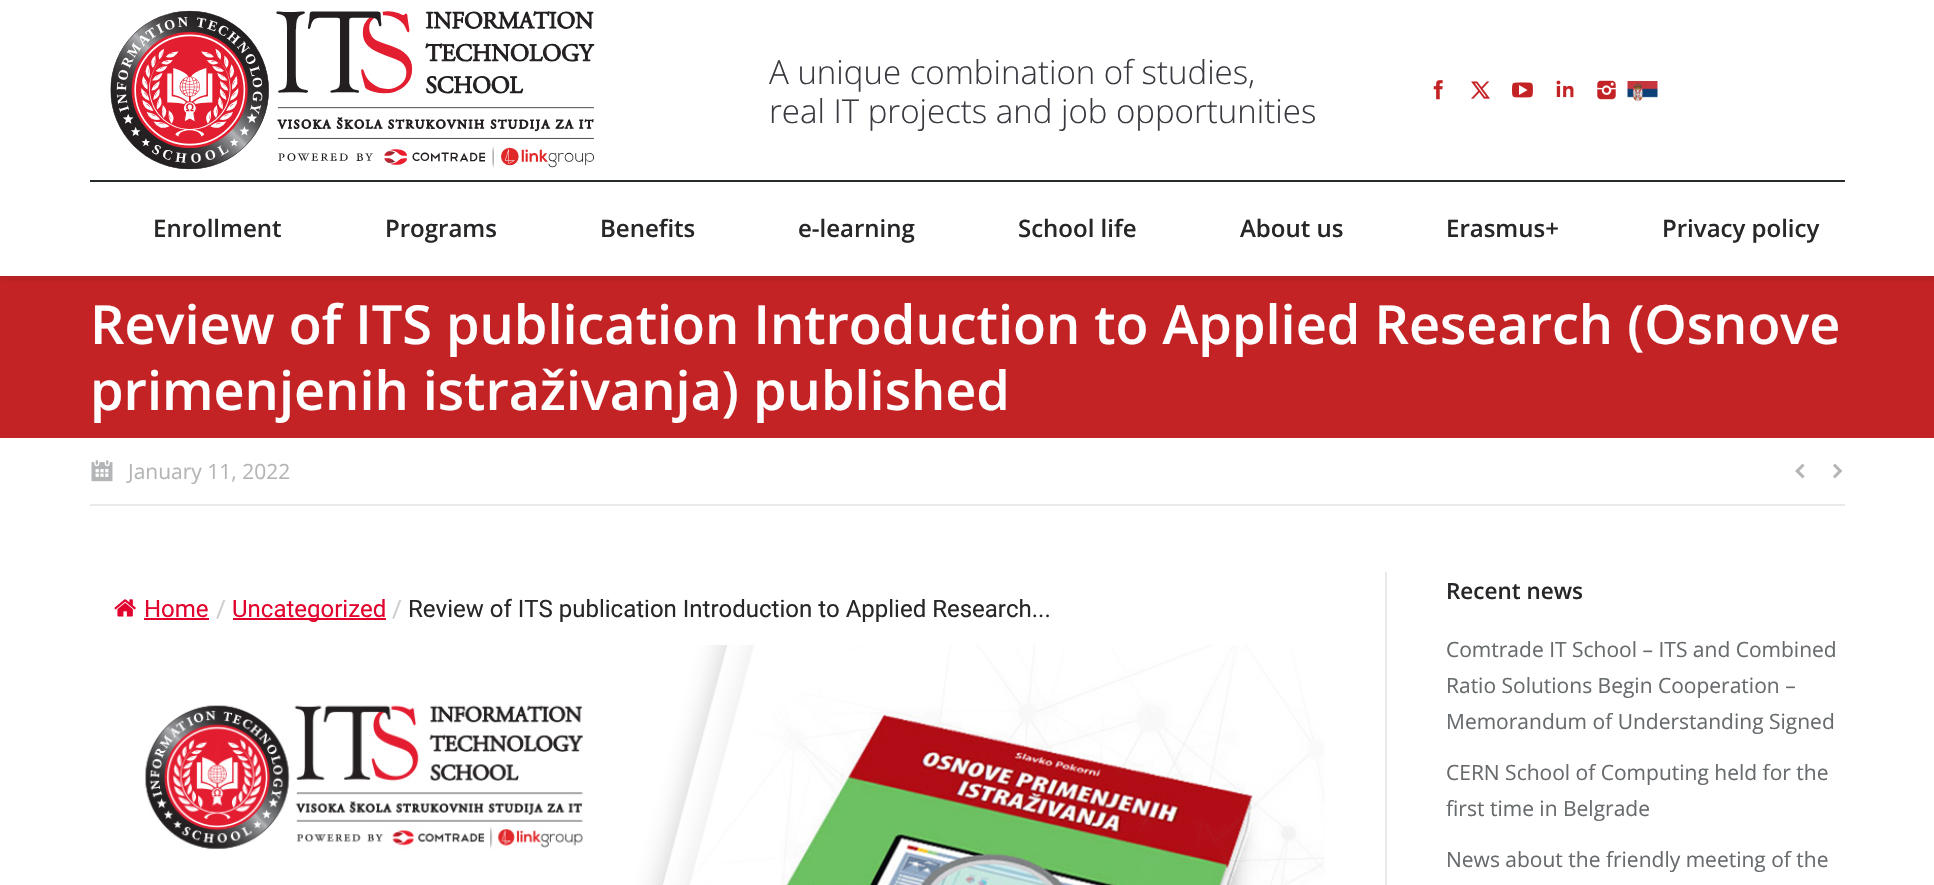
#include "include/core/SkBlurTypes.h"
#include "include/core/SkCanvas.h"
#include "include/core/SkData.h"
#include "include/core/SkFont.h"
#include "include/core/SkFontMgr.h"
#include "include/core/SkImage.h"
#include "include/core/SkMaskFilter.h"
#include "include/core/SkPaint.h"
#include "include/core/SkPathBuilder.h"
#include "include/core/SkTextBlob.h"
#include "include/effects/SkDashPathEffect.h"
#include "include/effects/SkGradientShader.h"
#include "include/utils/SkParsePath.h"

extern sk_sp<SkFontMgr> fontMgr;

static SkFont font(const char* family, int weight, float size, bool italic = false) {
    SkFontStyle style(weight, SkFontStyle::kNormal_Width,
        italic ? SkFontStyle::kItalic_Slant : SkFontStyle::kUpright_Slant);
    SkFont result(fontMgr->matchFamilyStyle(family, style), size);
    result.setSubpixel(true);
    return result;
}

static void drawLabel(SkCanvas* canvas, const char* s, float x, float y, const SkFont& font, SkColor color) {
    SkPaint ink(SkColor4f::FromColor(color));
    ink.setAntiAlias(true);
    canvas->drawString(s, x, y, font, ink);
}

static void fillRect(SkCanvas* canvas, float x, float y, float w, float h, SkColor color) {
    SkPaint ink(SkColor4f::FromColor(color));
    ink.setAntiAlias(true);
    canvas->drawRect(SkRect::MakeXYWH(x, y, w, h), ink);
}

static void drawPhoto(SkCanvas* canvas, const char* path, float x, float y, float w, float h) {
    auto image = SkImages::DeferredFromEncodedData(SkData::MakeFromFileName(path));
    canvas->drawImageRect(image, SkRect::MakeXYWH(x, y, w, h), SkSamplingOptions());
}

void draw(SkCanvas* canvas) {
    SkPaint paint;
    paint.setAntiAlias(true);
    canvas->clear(0xFFFFFFFF);
    fillRect(canvas, 0, 276, 1934, 162, 0xFFC42326);
    canvas->save();
    canvas->clipRect(SkRect::MakeXYWH(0, 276, 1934, 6));
    paint.setColor(0x1A000000);
    paint.setMaskFilter(SkMaskFilter::MakeBlur(kNormal_SkBlurStyle, 3));
    canvas->drawRect(SkRect::MakeXYWH(0, 0, 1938, 279), paint);
    paint.setMaskFilter(nullptr);
    canvas->restore();
    drawPhoto(canvas, "assets/img1.png", 110, 10, 485, 160);
    SkFont font1 = font("Open Sans", 300, 33);
    drawLabel(canvas, "A unique combination of studies,", 769, 84, font1, 0xFF393940);
    drawLabel(canvas, "real IT projects and job opportunities", 769, 123, font1, 0xFF393940);
    drawPhoto(canvas, "assets/img2.png", 1433, 80, 10, 20);
    drawPhoto(canvas, "assets/img3.png", 1471, 81, 19, 18);
    drawPhoto(canvas, "assets/img4.png", 1512, 82, 21, 16);
    drawPhoto(canvas, "assets/img5.png", 1556, 80, 18, 18);
    drawPhoto(canvas, "assets/img6.png", 1597, 80, 19, 20);
    drawPhoto(canvas, "assets/img7.png", 1627, 81, 31, 21);
    fillRect(canvas, 90, 180, 1755, 2, 0xFF262B2E);
    SkFont font2 = font("Open Sans", 600, 24);
    drawLabel(canvas, "Enrollment", 153, 237, font2, 0xFF27272A);
    drawLabel(canvas, "Programs", 385, 237, font2, 0xFF27272A);
    drawLabel(canvas, "Benefits", 600, 237, font2, 0xFF27272A);
    drawLabel(canvas, "e-learning", 798, 237, font2, 0xFF27272A);
    drawLabel(canvas, "School life", 1018, 237, font2, 0xFF27272A);
    drawLabel(canvas, "About us", 1240, 237, font2, 0xFF27272A);
    drawLabel(canvas, "Erasmus+", 1446, 237, font2, 0xFF27272A);
    drawLabel(canvas, "Privacy policy", 1662, 237, font2, 0xFF27272A);
    SkFont font3 = font("Open Sans", 600, 54);
    drawLabel(canvas, "Review of ITS publication Introduction to Applied Research (Osnove", 90, 344, font3, 0xFFFFFFFF);
    drawLabel(canvas, "primenjenih istraživanja) published", 90, 410, font3, 0xFFFFFFFF);
    fillRect(canvas, 90, 504, 1755, 2, 0xFFE8E9E9);
    drawPhoto(canvas, "assets/img8.png", 91, 460, 22, 22);
    SkFont font4 = font("Open Sans", 400, 21);
    drawLabel(canvas, "January 11, 2022", 128, 479, font4, 0xFFB3B5B6);
    drawPhoto(canvas, "assets/img9.png", 1795, 463, 10, 16);
    drawPhoto(canvas, "assets/img10.png", 1833, 463, 10, 16);
    drawPhoto(canvas, "assets/img11.png", 114, 599, 22, 18);
    SkFont font5 = font("Roboto", 400, 24);
    drawLabel(canvas, "Home", 144, 617, font5, 0xFFE1032E);
    fillRect(canvas, 144, 618, 65, 2, 0xFFE1032E);
    drawLabel(canvas, "/", 216, 617, font5, 0xFFCCCCCC);
    fillRect(canvas, 233, 618, 153, 2, 0xFFE1032E);
    drawLabel(canvas, "Uncategorized", 232, 617, font5, 0xFFE1032E);
    drawLabel(canvas, "/", 392, 617, font5, 0xFFCCCCCC);
    drawLabel(canvas, "Review of ITS publication Introduction to Applied Research...", 408, 617, font5, 0xFF27272A);
    drawPhoto(canvas, "assets/img12.png", 145, 645, 1180, 240);
    fillRect(canvas, 1385, 572, 2, 313, 0xFFE8E9E9);
    SkFont font6 = font("Open Sans", 600, 22.5f);
    drawLabel(canvas, "Recent news", 1446, 599, font6, 0xFF27272A);
    drawLabel(canvas, "Comtrade IT School – ITS and Combined", 1446, 657, font4, 0xFF676B6D);
    drawLabel(canvas, "Ratio Solutions Begin Cooperation –", 1446, 693, font4, 0xFF676B6D);
    drawLabel(canvas, "Memorandum of Understanding Signed", 1446, 729, font4, 0xFF676B6D);
    drawLabel(canvas, "CERN School of Computing held for the", 1446, 780, font4, 0xFF676B6D);
    drawLabel(canvas, "first time in Belgrade", 1446, 816, font4, 0xFF676B6D);
    drawLabel(canvas, "News about the friendly meeting of the", 1446, 867, font4, 0xFF676B6D);
}
